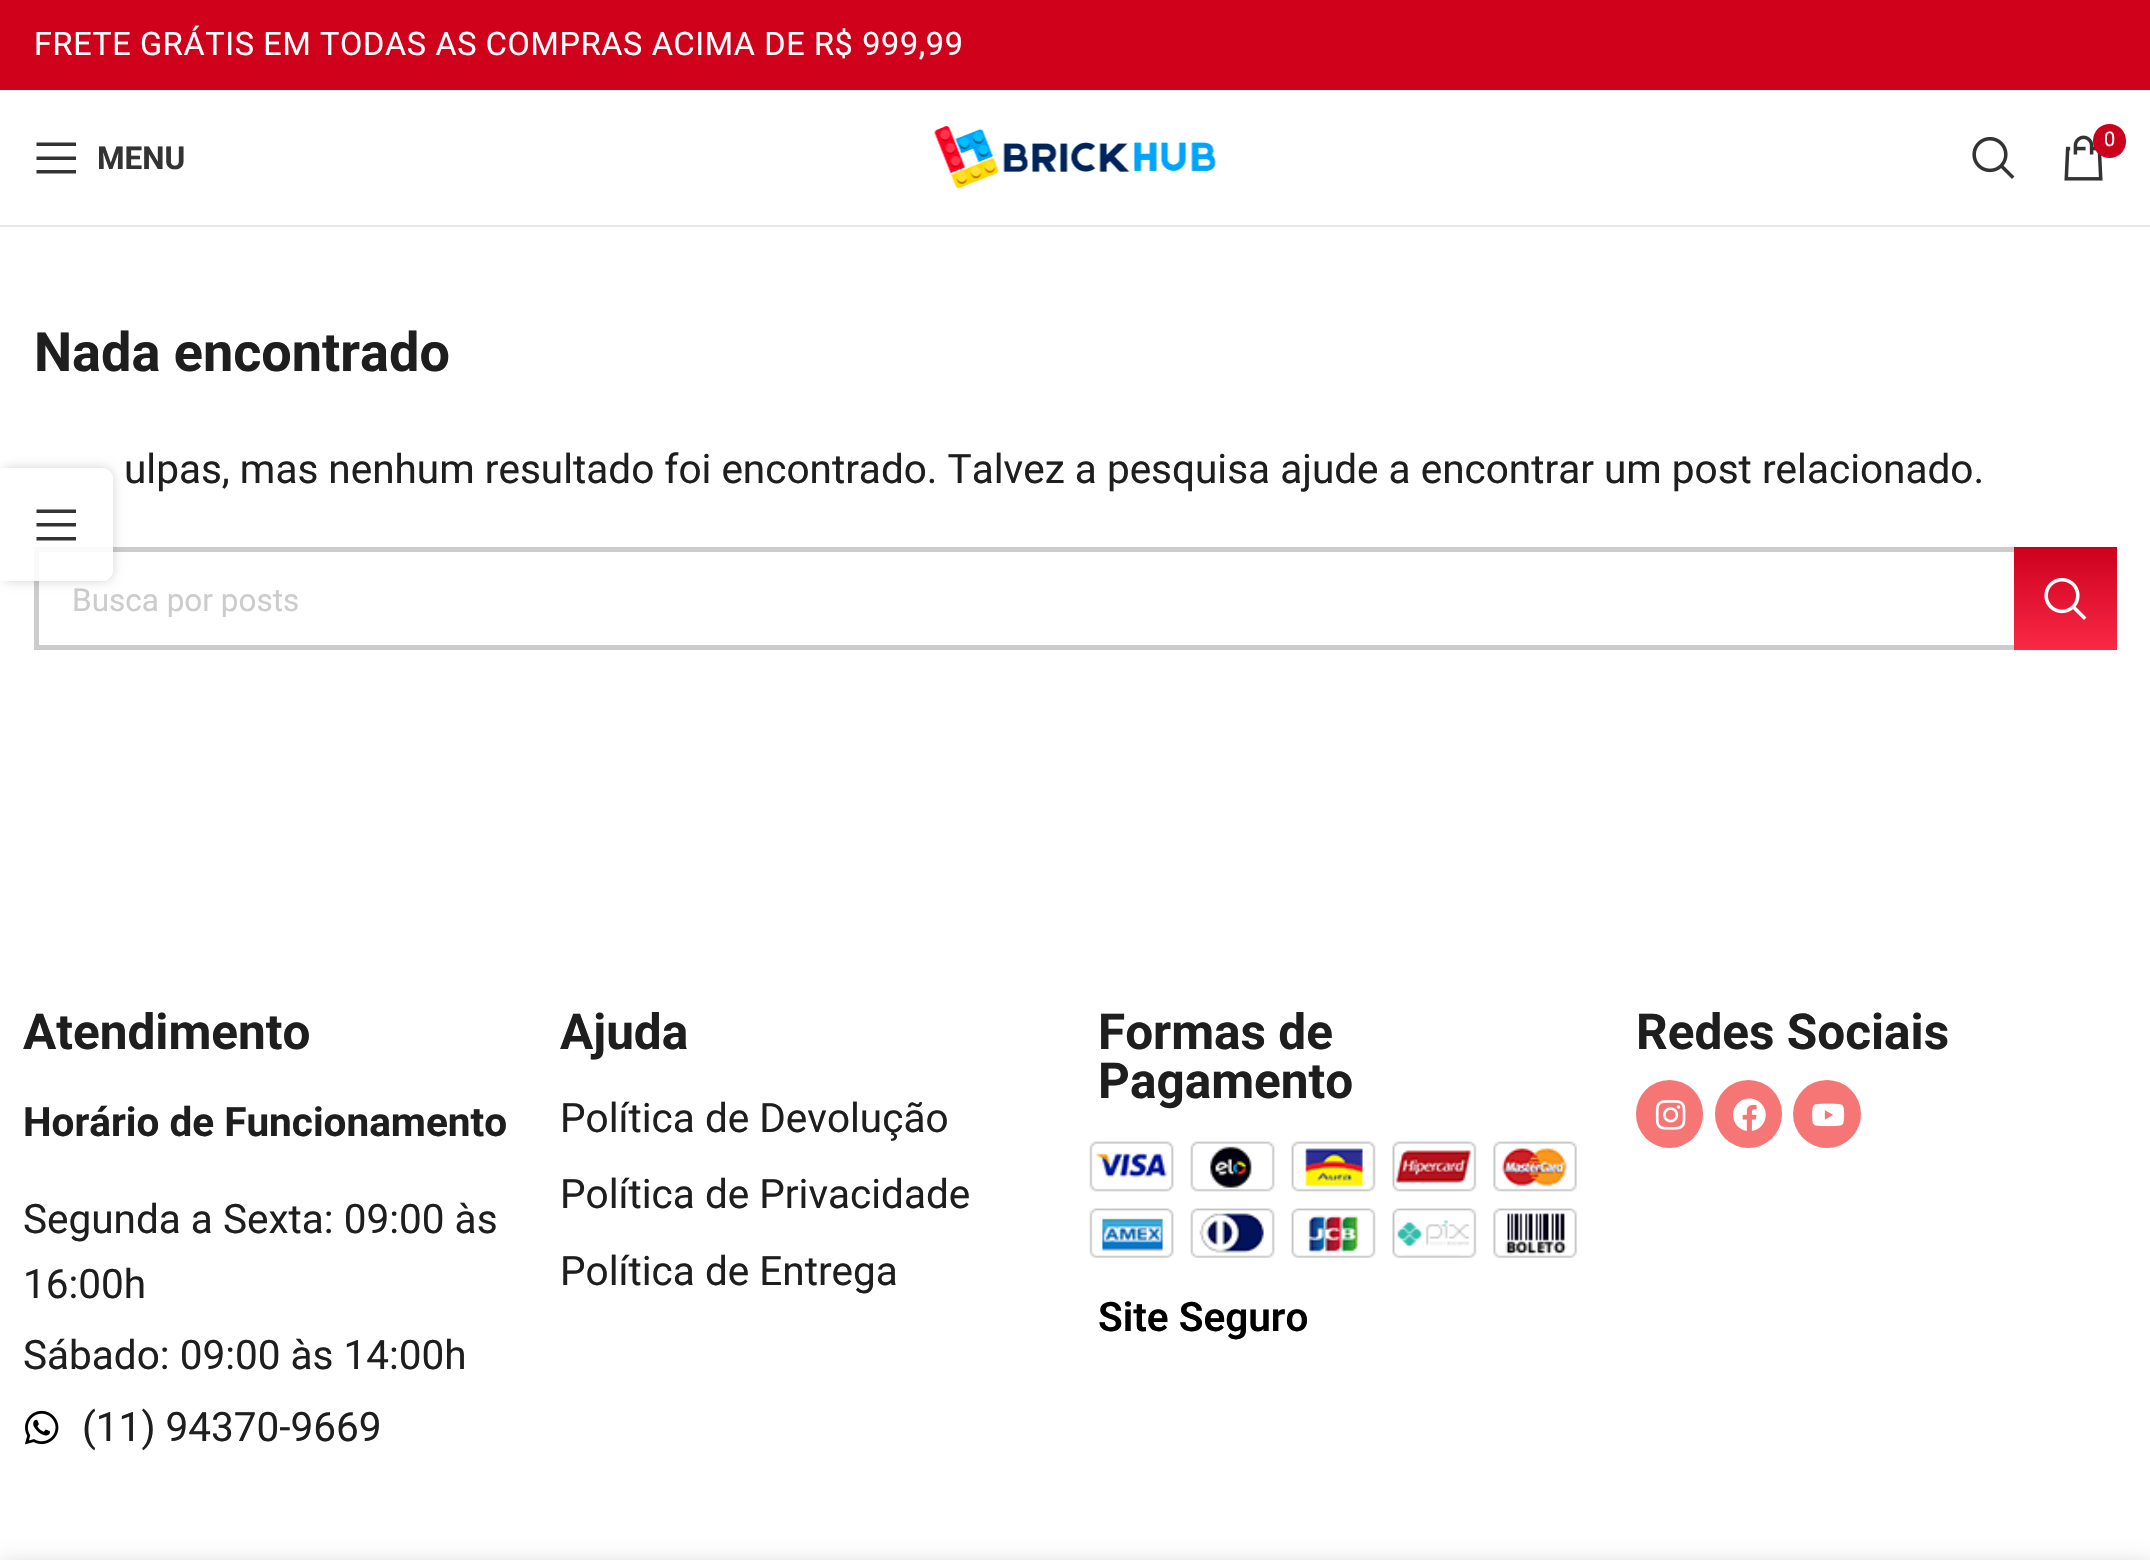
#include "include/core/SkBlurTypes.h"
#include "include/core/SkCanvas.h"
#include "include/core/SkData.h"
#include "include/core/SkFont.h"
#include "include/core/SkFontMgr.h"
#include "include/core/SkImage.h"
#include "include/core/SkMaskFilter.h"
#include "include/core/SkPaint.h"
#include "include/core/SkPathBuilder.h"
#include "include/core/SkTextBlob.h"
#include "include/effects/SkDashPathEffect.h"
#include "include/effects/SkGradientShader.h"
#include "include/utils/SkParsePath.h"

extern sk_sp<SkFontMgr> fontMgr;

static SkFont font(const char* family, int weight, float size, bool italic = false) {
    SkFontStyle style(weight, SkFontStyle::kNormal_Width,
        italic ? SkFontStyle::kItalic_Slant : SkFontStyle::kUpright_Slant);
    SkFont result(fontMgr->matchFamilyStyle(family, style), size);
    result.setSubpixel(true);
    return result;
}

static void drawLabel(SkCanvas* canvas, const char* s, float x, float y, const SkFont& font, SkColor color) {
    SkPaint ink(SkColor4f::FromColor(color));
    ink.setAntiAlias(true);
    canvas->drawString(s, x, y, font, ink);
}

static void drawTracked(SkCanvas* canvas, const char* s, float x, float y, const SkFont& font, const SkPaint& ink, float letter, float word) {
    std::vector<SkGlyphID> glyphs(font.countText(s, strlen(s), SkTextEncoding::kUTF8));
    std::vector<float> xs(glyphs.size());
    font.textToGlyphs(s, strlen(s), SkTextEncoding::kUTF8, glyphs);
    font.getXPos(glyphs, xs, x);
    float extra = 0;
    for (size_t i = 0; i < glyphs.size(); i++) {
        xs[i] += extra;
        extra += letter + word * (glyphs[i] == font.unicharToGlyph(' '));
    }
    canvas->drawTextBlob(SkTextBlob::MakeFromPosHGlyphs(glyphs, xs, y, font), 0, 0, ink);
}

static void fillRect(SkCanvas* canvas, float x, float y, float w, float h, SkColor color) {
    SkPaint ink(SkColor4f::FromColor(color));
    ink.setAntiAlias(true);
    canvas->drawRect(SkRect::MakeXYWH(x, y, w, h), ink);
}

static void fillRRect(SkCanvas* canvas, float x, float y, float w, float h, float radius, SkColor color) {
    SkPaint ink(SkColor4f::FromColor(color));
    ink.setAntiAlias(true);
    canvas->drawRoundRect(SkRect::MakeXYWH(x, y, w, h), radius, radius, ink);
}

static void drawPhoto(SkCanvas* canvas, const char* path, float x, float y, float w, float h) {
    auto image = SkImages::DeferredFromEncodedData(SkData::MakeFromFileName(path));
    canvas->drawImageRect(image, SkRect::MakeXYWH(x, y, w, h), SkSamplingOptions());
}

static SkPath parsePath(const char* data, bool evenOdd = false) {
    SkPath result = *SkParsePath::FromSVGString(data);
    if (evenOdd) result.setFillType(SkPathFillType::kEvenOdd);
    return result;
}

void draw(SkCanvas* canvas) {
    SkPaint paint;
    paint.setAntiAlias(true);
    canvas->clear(0xFFFFFFFF);
    fillRect(canvas, 0, 0, 2150, 90, 0xFFD0021B);
    SkFont font1 = font("Roboto", 400, 32.4f);
    paint.setColor(0xFFFFFFFF);
    drawTracked(canvas, "FRETE GRÁTIS EM TODAS AS COMPRAS ACIMA DE R$ 999,99", 34, 55, font1, paint, 0.67f, 0);
    fillRect(canvas, 0, 225, 2150, 2, 0xFFE6E6E6);
    drawPhoto(canvas, "assets/img1.png", 934, 126, 282, 63);
    drawPhoto(canvas, "assets/img2.png", 1972, 137, 43, 42);
    drawPhoto(canvas, "assets/img3.png", 2064, 135, 39, 46);
    fillRRect(canvas, 2093, 124, 33, 34, 16.5f, 0xFFCC001D);
    SkFont font2 = font("Roboto", 400, 20);
    drawLabel(canvas, "0", 2104, 146, font2, 0xFFFFFFFF);
    paint.setColor(0xFF333333);
    canvas->drawPath(parsePath("M36.5 146H76V142.5H36.5ZM36.5 160H76V156.5H36.5ZM36.5 173.5H76V170H36.5Z"), paint);
    SkFont font3 = font("Roboto", 700, 31.5f);
    drawLabel(canvas, "MENU", 97, 169, font3, 0xFF333333);
    SkFont font4 = font("Roboto", 700, 54);
    drawLabel(canvas, "Nada encontrado", 34, 371, font4, 0xFF1E1E1E);
    SkFont font5 = font("Roboto", 400, 40.5f);
    drawLabel(canvas, "ulpas, mas nenhum resultado foi encontrado. Talvez a pesquisa ajude a encontrar um post relacionado.", 124, 483, font5, 0xFF1E1E1E);
    paint.setStroke(true);
    paint.setStrokeWidth(5);
    paint.setColor(0xFFCCCCCC);
    canvas->drawRect(SkRect::MakeXYWH(36.5f, 549.5f, 2078, 98), paint);
    canvas->save();
    canvas->clipRect(SkRect::MakeXYWH(72, 581, 1870, 36));
    SkFont font6 = font("Roboto", 400, 31.5f);
    drawLabel(canvas, "Busca por posts", 72, 611, font6, 0xFFCCCCCC);
    canvas->restore();
    paint.setStroke(false);
    {
        const SkColor colors[] = {0xFFCC001D, 0xFFFA2946};
        const float stops[] = {0, 1};
        const SkPoint ends[] = {{2066, 547}, {2066, 650}};
        paint.setShader(SkGradientShader::MakeLinear(ends, colors, stops, 2, SkTileMode::kClamp));
        paint.setAlpha(255);
    }
    canvas->drawRect(SkRect::MakeXYWH(2014, 547, 103, 103), paint);
    drawPhoto(canvas, "assets/img4.png", 2044, 578, 43, 42);
    SkFont font7 = font("Roboto", 700, 49.5f);
    drawLabel(canvas, "Atendimento", 23, 1049, font7, 0xFF1E1E1E);
    SkFont font8 = font("Roboto", 700, 40.5f);
    drawLabel(canvas, "Horário de Funcionamento", 23, 1136, font8, 0xFF1E1E1E);
    drawLabel(canvas, "Segunda a Sexta: 09:00 às", 23, 1233, font5, 0xFF1E1E1E);
    drawLabel(canvas, "16:00h", 23, 1298, font5, 0xFF1E1E1E);
    drawLabel(canvas, "Sábado: 09:00 às 14:00h", 23, 1369, font5, 0xFF1E1E1E);
    drawPhoto(canvas, "assets/img5.png", 25, 1410, 34, 35);
    drawLabel(canvas, "(11) 94370-9669", 82, 1441, font5, 0xFF1E1E1E);
    drawLabel(canvas, "Ajuda", 560, 1049, font7, 0xFF1E1E1E);
    drawLabel(canvas, "Política de Devolução", 560, 1132, font5, 0xFF1E1E1E);
    drawLabel(canvas, "Política de Privacidade", 560, 1208, font5, 0xFF1E1E1E);
    drawLabel(canvas, "Política de Entrega", 560, 1285, font5, 0xFF1E1E1E);
    drawLabel(canvas, "Formas de", 1098, 1049, font7, 0xFF1E1E1E);
    drawLabel(canvas, "Pagamento", 1098, 1098, font7, 0xFF1E1E1E);
    drawPhoto(canvas, "assets/img6.png", 1089, 1141, 488, 117);
    SkFont font9 = font("Roboto", 600, 40.5f);
    drawLabel(canvas, "Site Seguro", 1098, 1331, font9, 0xFF000000);
    drawLabel(canvas, "Redes Sociais", 1636, 1049, font7, 0xFF1E1E1E);
    fillRRect(canvas, 1636, 1080, 67, 68, 33.5f, 0xFFF67676);
    drawPhoto(canvas, "assets/img7.png", 1655, 1100, 31, 30);
    fillRRect(canvas, 1715, 1080, 67, 68, 33.5f, 0xFFF67676);
    drawPhoto(canvas, "assets/img8.png", 1733, 1098, 33, 33);
    paint.setShader(nullptr);
    paint.setColor(0xFFF67676);
    canvas->drawCircle(1827, 1114, 34, paint);
    drawPhoto(canvas, "assets/img9.png", 1812, 1103, 33, 24);
    canvas->save();
    canvas->clipPath(parsePath("M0 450H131V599H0ZM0 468H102C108 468 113 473 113 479V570C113 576 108 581 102 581H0Z", true), true);
    paint.setColor(0x2B000000);
    paint.setMaskFilter(SkMaskFilter::MakeBlur(kNormal_SkBlurStyle, 5.5f));
    canvas->drawRoundRect(SkRect::MakeXYWH(0, 468, 113, 113), 11, 11, paint);
    paint.setMaskFilter(nullptr);
    canvas->restore();
    paint.setColor(0xE6FFFFFF);
    canvas->drawPath(parsePath("M0 468H102C108 468 113 473 113 479V570C113 576 108 581 102 581H0Z"), paint);
    paint.setColor(0xFF333333);
    canvas->drawPath(parsePath("M36.5 513H76V509.5H36.5ZM36.5 526.5H76V523H36.5ZM36.5 540.5H76V537H36.5Z"), paint);
    paint.setColor(0x24000000);
    paint.setMaskFilter(SkMaskFilter::MakeBlur(kNormal_SkBlurStyle, 10));
    canvas->drawRect(SkRect::MakeXYWH(0, 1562, 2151, 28), paint);
    paint.setMaskFilter(nullptr);
}
